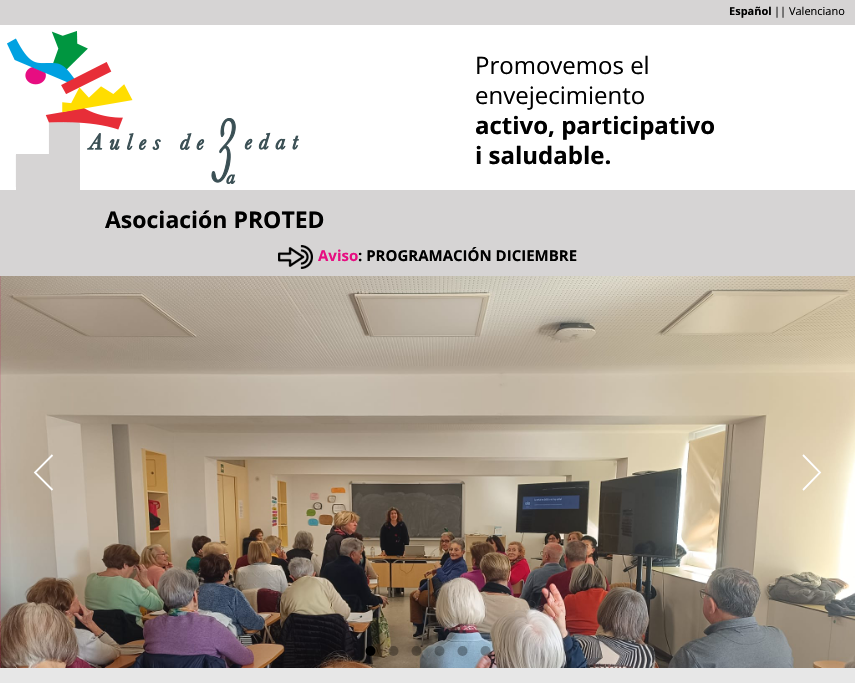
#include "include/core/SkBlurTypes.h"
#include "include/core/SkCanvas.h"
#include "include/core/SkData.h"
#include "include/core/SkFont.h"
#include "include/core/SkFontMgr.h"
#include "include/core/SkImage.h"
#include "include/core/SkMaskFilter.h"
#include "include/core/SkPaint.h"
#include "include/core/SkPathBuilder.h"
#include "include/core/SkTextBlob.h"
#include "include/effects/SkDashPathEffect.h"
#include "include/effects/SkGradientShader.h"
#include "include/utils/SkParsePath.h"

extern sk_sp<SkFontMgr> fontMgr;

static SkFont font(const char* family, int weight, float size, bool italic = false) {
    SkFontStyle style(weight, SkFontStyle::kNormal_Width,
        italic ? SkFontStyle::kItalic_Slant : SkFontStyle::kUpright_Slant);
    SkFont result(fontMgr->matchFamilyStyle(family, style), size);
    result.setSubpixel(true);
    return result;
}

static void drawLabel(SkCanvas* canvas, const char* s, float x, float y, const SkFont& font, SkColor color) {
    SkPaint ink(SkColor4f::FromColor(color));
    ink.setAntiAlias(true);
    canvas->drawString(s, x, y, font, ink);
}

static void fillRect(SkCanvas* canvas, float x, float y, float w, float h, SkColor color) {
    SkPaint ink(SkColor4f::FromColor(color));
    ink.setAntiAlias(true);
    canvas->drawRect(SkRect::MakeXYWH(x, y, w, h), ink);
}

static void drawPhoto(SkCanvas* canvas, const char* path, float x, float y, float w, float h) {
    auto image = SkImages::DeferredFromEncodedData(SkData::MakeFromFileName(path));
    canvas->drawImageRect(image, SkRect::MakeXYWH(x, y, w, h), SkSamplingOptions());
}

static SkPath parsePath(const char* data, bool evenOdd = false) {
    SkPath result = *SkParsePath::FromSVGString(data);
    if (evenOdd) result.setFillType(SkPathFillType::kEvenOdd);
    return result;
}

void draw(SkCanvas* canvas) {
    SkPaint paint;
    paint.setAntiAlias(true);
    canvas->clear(0xFFFFFFFF);
    fillRect(canvas, 0, 0, 855, 25, 0xFFD6D4D4);
    SkFont font1 = font("Open Sans", 700, 11);
    drawLabel(canvas, "Español", 729, 15, font1, 0xFF000000);
    SkFont font2 = font("Open Sans", 400, 11);
    drawLabel(canvas, "|| Valenciano", 774, 15, font2, 0xFF000000);
    drawPhoto(canvas, "assets/img1.png", 7, 31, 292, 159);
    SkFont font3 = font("Open Sans", 400, 24);
    drawLabel(canvas, "Promovemos el", 475, 74, font3, 0xFF000000);
    drawLabel(canvas, "envejecimiento", 475, 104, font3, 0xFF000000);
    SkFont font4 = font("Open Sans", 700, 24);
    drawLabel(canvas, "activo, participativo", 475, 134, font4, 0xFF000000);
    drawLabel(canvas, "i saludable.", 475, 164, font4, 0xFF000000);
    fillRect(canvas, 0, 190, 855, 86, 0xFFD6D4D4);
    SkFont font5 = font("Open Sans", 700, 23);
    drawLabel(canvas, "Asociación PROTED", 105, 228, font5, 0xFF000000);
    drawPhoto(canvas, "assets/img2.png", 278, 245, 35, 24);
    SkFont font6 = font("Open Sans", 700, 15);
    drawLabel(canvas, "Aviso", 318, 261, font6, 0xFFE70D81);
    drawLabel(canvas, ": PROGRAMACIÓN DICIEMBRE", 358, 261, font6, 0xFF000000);
    drawPhoto(canvas, "assets/img3.png", 0, 276, 1, 392);
    drawPhoto(canvas, "assets/img4.png", 0, 276, 855, 392);
    paint.setStroke(true);
    paint.setStrokeWidth(1.8f);
    paint.setColor(0xFFFFFFFF);
    canvas->drawPath(parsePath("M52.5 455L35 472.5L52.5 490"), paint);
    canvas->drawPath(parsePath("M803 455L820 472.5L803 490"), paint);
    paint.setStroke(false);
    paint.setColor(0xFF000000);
    canvas->drawCircle(370.5f, 651, 5, paint);
    paint.setColor(0x4D000000);
    canvas->drawCircle(393.5f, 651, 5, paint);
    canvas->drawCircle(416.5f, 651, 5, paint);
    canvas->drawCircle(439.5f, 651, 5, paint);
    canvas->drawCircle(462.5f, 651, 5, paint);
    canvas->drawCircle(485.5f, 651, 5, paint);
    fillRect(canvas, 0, 668, 855, 15, 0xFFE7E7E7);
}
